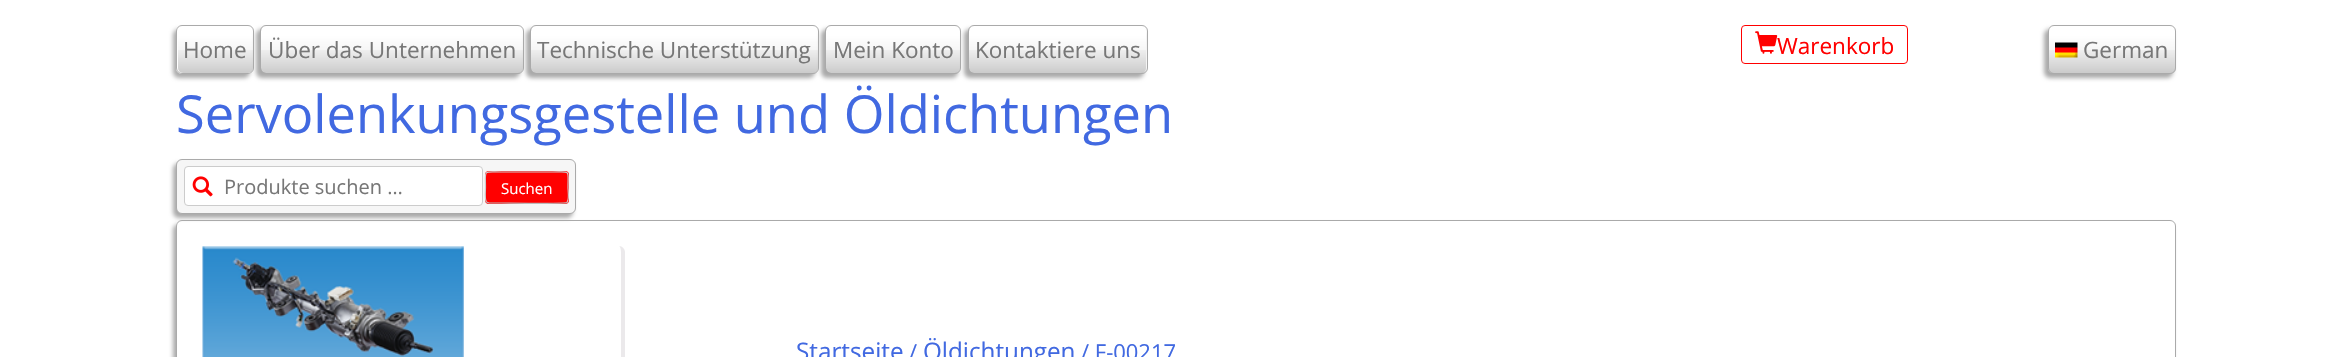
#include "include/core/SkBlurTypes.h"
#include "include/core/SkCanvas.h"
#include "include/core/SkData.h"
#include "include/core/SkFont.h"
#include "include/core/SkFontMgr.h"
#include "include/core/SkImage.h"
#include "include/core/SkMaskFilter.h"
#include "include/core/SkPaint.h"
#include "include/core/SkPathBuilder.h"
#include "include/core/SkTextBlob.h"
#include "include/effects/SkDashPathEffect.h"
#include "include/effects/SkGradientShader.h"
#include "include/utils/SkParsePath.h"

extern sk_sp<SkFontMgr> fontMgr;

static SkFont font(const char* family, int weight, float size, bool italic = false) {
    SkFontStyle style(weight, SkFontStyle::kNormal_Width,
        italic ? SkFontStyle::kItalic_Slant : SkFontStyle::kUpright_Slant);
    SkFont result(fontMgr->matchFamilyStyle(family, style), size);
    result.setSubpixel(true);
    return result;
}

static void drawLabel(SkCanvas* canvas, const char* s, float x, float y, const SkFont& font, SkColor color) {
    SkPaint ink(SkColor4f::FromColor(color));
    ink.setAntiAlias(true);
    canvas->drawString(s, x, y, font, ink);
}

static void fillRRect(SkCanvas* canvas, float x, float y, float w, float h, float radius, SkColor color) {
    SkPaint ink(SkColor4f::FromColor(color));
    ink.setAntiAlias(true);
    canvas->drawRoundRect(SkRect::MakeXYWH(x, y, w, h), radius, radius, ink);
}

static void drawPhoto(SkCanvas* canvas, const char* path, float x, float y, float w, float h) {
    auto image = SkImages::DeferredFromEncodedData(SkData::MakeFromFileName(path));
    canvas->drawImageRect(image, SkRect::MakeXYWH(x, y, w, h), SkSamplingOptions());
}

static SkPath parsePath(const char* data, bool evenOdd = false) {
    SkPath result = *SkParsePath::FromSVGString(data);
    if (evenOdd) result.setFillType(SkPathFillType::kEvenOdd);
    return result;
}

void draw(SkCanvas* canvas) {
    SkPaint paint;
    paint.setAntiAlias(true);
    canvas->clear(0xFFFFFFFF);
    canvas->save();
    canvas->clipPath(parsePath("M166 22H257V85H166ZM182 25H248C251.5 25 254 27.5 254 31V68C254 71.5 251.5 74 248 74H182C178.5 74 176 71.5 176 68V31C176 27.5 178.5 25 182 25Z", true), true);
    paint.setColor(0xFFAAAAAA);
    paint.setMaskFilter(SkMaskFilter::MakeBlur(kNormal_SkBlurStyle, 2));
    canvas->drawRoundRect(SkRect::MakeXYWH(173, 29, 77, 49), 6, 6, paint);
    paint.setMaskFilter(nullptr);
    canvas->restore();
    {
        const SkColor colors[] = {0xFFFFFFFF, 0xFFF6F6F6, 0xFFEEEEEE, 0xFFCBCBCB};
        const float stops[] = {0.2f, 0.5f, 0.52f, 1};
        const SkPoint ends[] = {{215, 26}, {215, 73}};
        paint.setShader(SkGradientShader::MakeLinear(ends, colors, stops, 4, SkTileMode::kClamp));
        paint.setAlpha(255);
    }
    canvas->drawRoundRect(SkRect::MakeXYWH(178, 26, 75, 47), 5, 5, paint);
    paint.setStroke(true);
    paint.setStrokeWidth(1);
    paint.setShader(nullptr);
    paint.setColor(0xFFAAAAAA);
    canvas->drawRoundRect(SkRect::MakeXYWH(176.5f, 25.5f, 77, 48), 5.5f, 5.5f, paint);
    SkFont font1 = font("Open Sans", 400, 22.5f);
    drawLabel(canvas, "Home", 183, 58, font1, 0xFF777777);
    paint.setStroke(false);
    paint.setMaskFilter(SkMaskFilter::MakeBlur(kNormal_SkBlurStyle, 2));
    canvas->drawRoundRect(SkRect::MakeXYWH(256, 29, 264, 49), 6, 6, paint);
    paint.setMaskFilter(nullptr);
    {
        const SkColor colors[] = {0xFFFFFFFF, 0xFFF6F6F6, 0xFFEEEEEE, 0xFFCBCBCB};
        const float stops[] = {0.2f, 0.5f, 0.52f, 1};
        const SkPoint ends[] = {{392, 26}, {392, 73}};
        paint.setShader(SkGradientShader::MakeLinear(ends, colors, stops, 4, SkTileMode::kClamp));
        paint.setAlpha(255);
    }
    canvas->drawRoundRect(SkRect::MakeXYWH(261, 26, 262, 47), 5, 5, paint);
    paint.setStroke(true);
    paint.setShader(nullptr);
    paint.setColor(0xFFAAAAAA);
    canvas->drawRoundRect(SkRect::MakeXYWH(260.5f, 25.5f, 263, 48), 5.5f, 5.5f, paint);
    drawLabel(canvas, "Über das Unternehmen", 268, 58, font1, 0xFF777777);
    paint.setStroke(false);
    paint.setMaskFilter(SkMaskFilter::MakeBlur(kNormal_SkBlurStyle, 2));
    canvas->drawRoundRect(SkRect::MakeXYWH(526, 29, 289, 49), 6, 6, paint);
    paint.setMaskFilter(nullptr);
    {
        const SkColor colors[] = {0xFFFFFFFF, 0xFFF6F6F6, 0xFFEEEEEE, 0xFFCBCBCB};
        const float stops[] = {0.2f, 0.5f, 0.52f, 1};
        const SkPoint ends[] = {{674, 26}, {674, 73}};
        paint.setShader(SkGradientShader::MakeLinear(ends, colors, stops, 4, SkTileMode::kClamp));
        paint.setAlpha(255);
    }
    canvas->drawRoundRect(SkRect::MakeXYWH(531, 26, 287, 47), 5, 5, paint);
    paint.setStroke(true);
    paint.setShader(nullptr);
    paint.setColor(0xFFAAAAAA);
    canvas->drawRoundRect(SkRect::MakeXYWH(530.5f, 25.5f, 288, 48), 5.5f, 5.5f, paint);
    drawLabel(canvas, "Technische Unterstützung", 537, 58, font1, 0xFF777777);
    paint.setStroke(false);
    paint.setMaskFilter(SkMaskFilter::MakeBlur(kNormal_SkBlurStyle, 2));
    canvas->drawRoundRect(SkRect::MakeXYWH(821, 29, 137, 49), 6, 6, paint);
    paint.setMaskFilter(nullptr);
    {
        const SkColor colors[] = {0xFFFFFFFF, 0xFFF6F6F6, 0xFFEEEEEE, 0xFFCBCBCB};
        const float stops[] = {0.2f, 0.5f, 0.52f, 1};
        const SkPoint ends[] = {{893, 26}, {893, 73}};
        paint.setShader(SkGradientShader::MakeLinear(ends, colors, stops, 4, SkTileMode::kClamp));
        paint.setAlpha(255);
    }
    canvas->drawRoundRect(SkRect::MakeXYWH(826, 26, 134, 47), 5, 5, paint);
    paint.setStroke(true);
    paint.setShader(nullptr);
    paint.setColor(0xFFAAAAAA);
    canvas->drawRoundRect(SkRect::MakeXYWH(825.5f, 25.5f, 135, 48), 5.5f, 5.5f, paint);
    drawLabel(canvas, "Mein Konto", 833, 58, font1, 0xFF777777);
    paint.setStroke(false);
    paint.setMaskFilter(SkMaskFilter::MakeBlur(kNormal_SkBlurStyle, 2));
    canvas->drawRoundRect(SkRect::MakeXYWH(964, 29, 180, 49), 6, 6, paint);
    paint.setMaskFilter(nullptr);
    {
        const SkColor colors[] = {0xFFFFFFFF, 0xFFF6F6F6, 0xFFEEEEEE, 0xFFCBCBCB};
        const float stops[] = {0.2f, 0.5f, 0.52f, 1};
        const SkPoint ends[] = {{1058, 26}, {1058, 73}};
        paint.setShader(SkGradientShader::MakeLinear(ends, colors, stops, 4, SkTileMode::kClamp));
        paint.setAlpha(255);
    }
    canvas->drawRoundRect(SkRect::MakeXYWH(969, 26, 177, 47), 5, 5, paint);
    paint.setStroke(true);
    paint.setShader(nullptr);
    paint.setColor(0xFFAAAAAA);
    canvas->drawRoundRect(SkRect::MakeXYWH(968.5f, 25.5f, 179, 48), 5.5f, 5.5f, paint);
    drawLabel(canvas, "Kontaktiere uns", 975, 58, font1, 0xFF777777);
    paint.setColor(0xFFFF0000);
    canvas->drawRoundRect(SkRect::MakeXYWH(1741.5f, 25.5f, 166, 38), 3.5f, 3.5f, paint);
    drawPhoto(canvas, "assets/img1.png", 1755, 31, 23, 23);
    drawLabel(canvas, "Warenkorb", 1777, 54, font1, 0xFFFF0000);
    paint.setStroke(false);
    paint.setColor(0xFFAAAAAA);
    paint.setMaskFilter(SkMaskFilter::MakeBlur(kNormal_SkBlurStyle, 2));
    canvas->drawRoundRect(SkRect::MakeXYWH(2044, 29, 129, 49), 6, 6, paint);
    paint.setMaskFilter(nullptr);
    canvas->save();
    canvas->clipPath(parsePath("M2054 25H2170C2173.5 25 2176 27.5 2176 31V68C2176 71.5 2173.5 74 2170 74H2054C2050.5 74 2048 71.5 2048 68V31C2048 27.5 2050.5 25 2054 25Z"), true);
    {
        const SkColor colors[] = {0xFFFFFFFF, 0xFFF6F6F6, 0xFFEEEEEE, 0xFFCBCBCB};
        const float stops[] = {0.2f, 0.5f, 0.52f, 1};
        const SkPoint ends[] = {{2112, 26}, {2112, 73}};
        paint.setShader(SkGradientShader::MakeLinear(ends, colors, stops, 4, SkTileMode::kClamp));
        paint.setAlpha(255);
    }
    canvas->drawRect(SkRect::MakeXYWH(2048, 26, 128, 47), paint);
    canvas->restore();
    paint.setStroke(true);
    paint.setShader(nullptr);
    paint.setColor(0xFFAAAAAA);
    canvas->drawRoundRect(SkRect::MakeXYWH(2048.5f, 25.5f, 127, 48), 5.5f, 5.5f, paint);
    drawPhoto(canvas, "assets/img2.png", 2055, 42, 23, 16);
    drawLabel(canvas, "German", 2083, 58, font1, 0xFF777777);
    SkFont font2 = font("Open Sans", 400, 52.4f);
    drawLabel(canvas, "Servolenkungsgestelle und Öldichtungen", 176, 133, font2, 0xFF4169E1);
    canvas->save();
    canvas->clipPath(parsePath("M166 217H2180V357H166ZM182 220H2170C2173.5 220 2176 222.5 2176 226V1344C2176 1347.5 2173.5 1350 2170 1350H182C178.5 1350 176 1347.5 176 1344V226C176 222.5 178.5 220 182 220Z", true), true);
    paint.setStroke(false);
    paint.setMaskFilter(SkMaskFilter::MakeBlur(kNormal_SkBlurStyle, 2));
    canvas->drawRoundRect(SkRect::MakeXYWH(173, 224, 2000, 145), 6, 6, paint);
    paint.setMaskFilter(nullptr);
    canvas->restore();
    paint.setStroke(true);
    canvas->drawRoundRect(SkRect::MakeXYWH(176.5f, 220.5f, 1999, 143), 5.5f, 5.5f, paint);
    paint.setStroke(false);
    paint.setMaskFilter(SkMaskFilter::MakeBlur(kNormal_SkBlurStyle, 2));
    canvas->drawRoundRect(SkRect::MakeXYWH(173, 163, 400, 55), 6, 6, paint);
    paint.setMaskFilter(nullptr);
    paint.setColor(0xFFF6F6F6);
    canvas->drawRoundRect(SkRect::MakeXYWH(176.5f, 159.5f, 399, 54), 5.5f, 5.5f, paint);
    paint.setStroke(true);
    paint.setColor(0xFFAAAAAA);
    canvas->drawRoundRect(SkRect::MakeXYWH(176.5f, 159.5f, 399, 54), 5.5f, 5.5f, paint);
    paint.setStroke(false);
    paint.setColor(0xFFFFFFFF);
    canvas->drawRoundRect(SkRect::MakeXYWH(184.5f, 166.5f, 298, 39), 3.5f, 3.5f, paint);
    paint.setStroke(true);
    paint.setColor(0xFFCCCCCC);
    canvas->drawRoundRect(SkRect::MakeXYWH(184.5f, 166.5f, 298, 39), 3.5f, 3.5f, paint);
    drawPhoto(canvas, "assets/img3.png", 192, 176, 21, 21);
    SkFont font3 = font("Open Sans", 400, 20);
    drawLabel(canvas, "Produkte suchen …", 224, 194, font3, 0xFF777777);
    fillRRect(canvas, 485, 171, 84, 33, 4, 0xFFFF0000);
    paint.setStrokeWidth(1.2f);
    paint.setColor(0xFFBBBBBB);
    canvas->drawPath(parsePath("M567 202V202.5C565 204 509 203 501.5 203H489L486.5 202"), paint);
    paint.setColor(0xFFCCCCCC);
    canvas->drawPath(parsePath("M486.5 202C484.5 200 485.5 190.5 485.5 187.5C485.5 169 482.5 172 501.5 172H552.5C571 172 568 169 568 187.5C568 190.5 569.5 200 567 202"), paint);
    SkFont font4 = font("Open Sans", 400, 15);
    drawLabel(canvas, "Suchen", 501, 194, font4, 0xFFFFFFFF);
    paint.setStroke(false);
    paint.setColor(0xFFEBE9EB);
    canvas->drawPath(parsePath("M209 246H619C622 246 625 249 625 252V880C625 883 622 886 619 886H209C205 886 202 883 202 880V252C202 249 205 246 209 246ZM209 246H619C620 246 621 249 621 252V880C621 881 620 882 619 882H209C205 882 202 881 202 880V252C202 249 205 246 209 246Z", true), paint);
    drawPhoto(canvas, "assets/img4.png", 202, 246, 262, 111);
    SkFont font5 = font("Open Sans", 400, 24.25f);
    drawLabel(canvas, "Startseite", 796, 360, font5, 0xFF4169E1);
    SkFont font6 = font("Open Sans", 400, 22);
    drawLabel(canvas, "/", 909, 360, font6, 0xFF4169E1);
    drawLabel(canvas, "Öldichtungen", 923, 360, font5, 0xFF4169E1);
    drawLabel(canvas, "/ F-00217", 1081, 360, font6, 0xFF4169E1);
}
